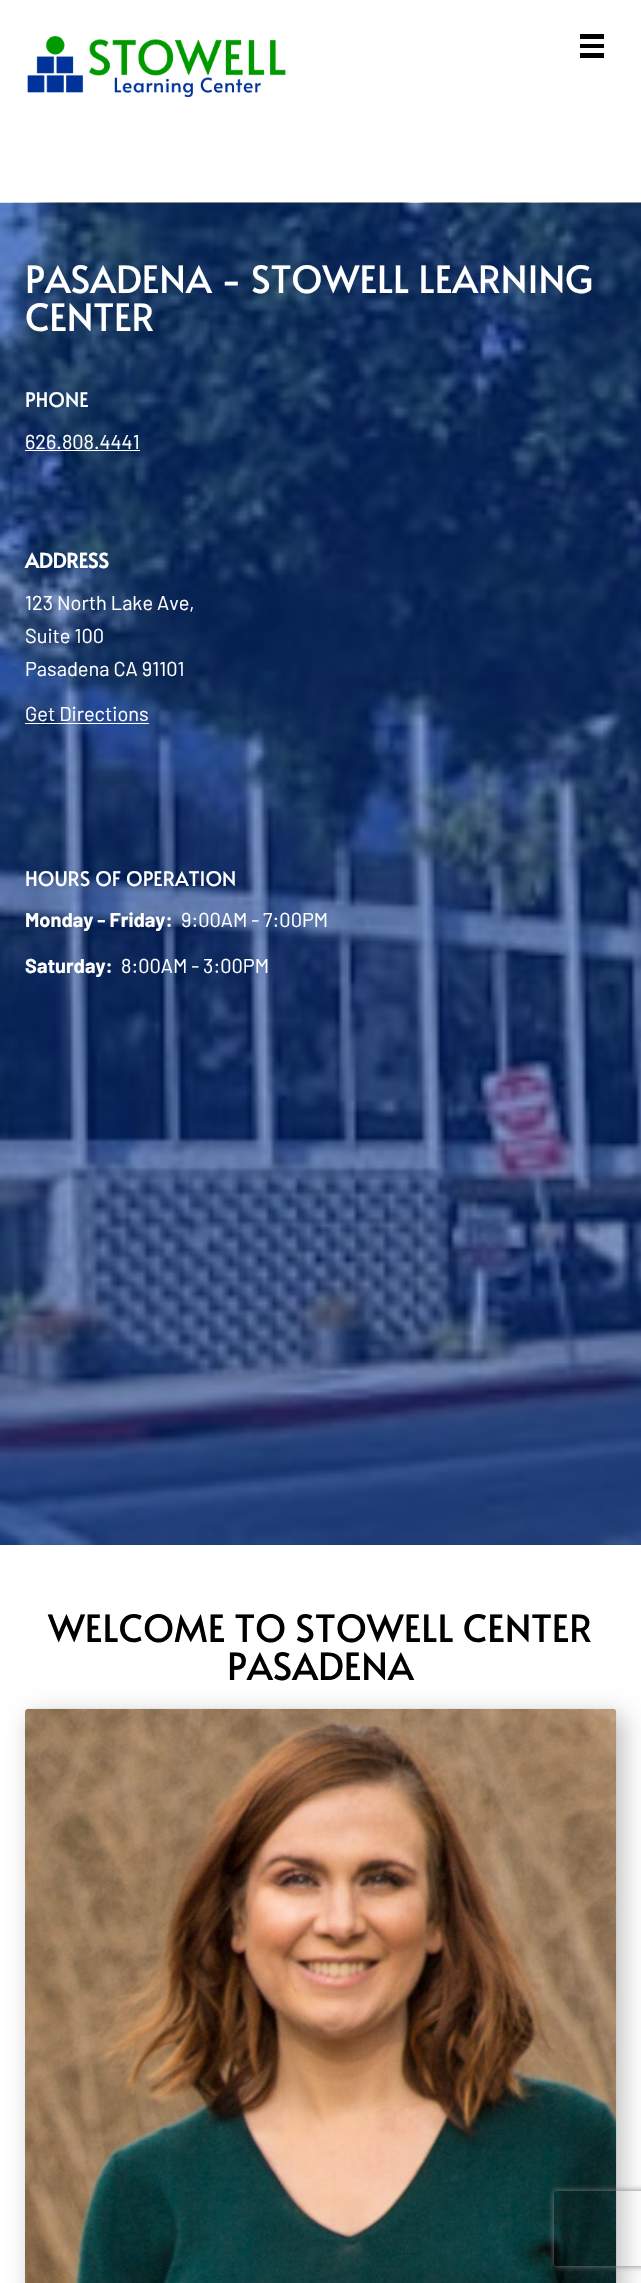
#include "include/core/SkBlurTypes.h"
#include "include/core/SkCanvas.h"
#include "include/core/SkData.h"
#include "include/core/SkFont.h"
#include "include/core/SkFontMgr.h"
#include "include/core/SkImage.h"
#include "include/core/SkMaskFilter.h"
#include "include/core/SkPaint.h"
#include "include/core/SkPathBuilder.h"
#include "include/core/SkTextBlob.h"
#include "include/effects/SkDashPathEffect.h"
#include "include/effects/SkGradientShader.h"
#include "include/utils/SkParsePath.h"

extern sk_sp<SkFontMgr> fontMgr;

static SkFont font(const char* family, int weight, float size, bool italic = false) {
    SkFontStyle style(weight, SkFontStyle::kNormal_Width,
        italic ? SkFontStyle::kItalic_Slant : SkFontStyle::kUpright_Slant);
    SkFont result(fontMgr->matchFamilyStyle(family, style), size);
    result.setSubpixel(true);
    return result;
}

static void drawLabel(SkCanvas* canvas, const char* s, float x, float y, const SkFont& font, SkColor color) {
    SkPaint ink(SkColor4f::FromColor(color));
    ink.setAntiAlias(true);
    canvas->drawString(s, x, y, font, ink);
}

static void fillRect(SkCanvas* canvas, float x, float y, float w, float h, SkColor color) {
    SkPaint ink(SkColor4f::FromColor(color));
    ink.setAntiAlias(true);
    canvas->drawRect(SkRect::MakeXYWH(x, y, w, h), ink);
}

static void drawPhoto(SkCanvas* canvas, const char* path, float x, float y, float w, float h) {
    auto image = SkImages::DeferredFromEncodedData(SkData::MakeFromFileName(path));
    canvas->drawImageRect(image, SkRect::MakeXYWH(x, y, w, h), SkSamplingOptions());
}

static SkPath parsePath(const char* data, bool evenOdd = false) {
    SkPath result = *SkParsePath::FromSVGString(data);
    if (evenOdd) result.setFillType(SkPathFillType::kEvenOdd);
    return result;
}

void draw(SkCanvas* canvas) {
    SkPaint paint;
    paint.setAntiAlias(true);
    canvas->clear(0xFFFFFFFF);
    drawPhoto(canvas, "assets/img1.png", 27, 36, 259, 62);
    fillRect(canvas, 580, 34, 24, 5, 0xFF000000);
    fillRect(canvas, 580, 44, 24, 4, 0xFF000000);
    fillRect(canvas, 580, 53, 24, 5, 0xFF000000);
    drawPhoto(canvas, "assets/img2.png", 0, 202, 641, 1343);
    SkFont font1 = font("Alata", 400, 37.5f);
    drawLabel(canvas, "PASADENA - STOWELL LEARNING", 25, 293, font1, 0xFFFFFFFF);
    drawLabel(canvas, "CENTER", 25, 331, font1, 0xFFFFFFFF);
    SkFont font2 = font("Alata", 400, 20);
    drawLabel(canvas, "PHONE", 25, 407, font2, 0xFFFFFFFF);
    SkFont font3 = font("Barlow", 400, 20);
    drawLabel(canvas, "626.808.4441", 25, 449, font3, 0xFFFFFFFF);
    fillRect(canvas, 25, 450, 115, 1, 0xFFFFFFFF);
    SkFont font4 = font("Alata", 700, 20);
    drawLabel(canvas, "ADDRESS", 25, 568, font4, 0xFFFFFFFF);
    drawLabel(canvas, "123 North Lake Ave,", 25, 610, font3, 0xFFFFFFFF);
    drawLabel(canvas, "Suite 100", 25, 643, font3, 0xFFFFFFFF);
    drawLabel(canvas, "Pasadena CA 91101", 25, 676, font3, 0xFFFFFFFF);
    drawLabel(canvas, "Get Directions", 25, 721, font3, 0xFFFFFFFF);
    fillRect(canvas, 25, 723, 124, 1, 0xFFFFFFFF);
    drawLabel(canvas, "HOURS OF OPERATION", 25, 886, font2, 0xFFFFFFFF);
    SkFont font5 = font("Barlow", 700, 20);
    drawLabel(canvas, "Monday - Friday:", 25, 927, font5, 0xFFFFFFFF);
    drawLabel(canvas, "9:00AM - 7:00PM", 181, 927, font3, 0xFFFFFFFF);
    drawLabel(canvas, "Saturday:", 25, 973, font5, 0xFFFFFFFF);
    drawLabel(canvas, "8:00AM - 3:00PM", 121, 973, font3, 0xFFFFFFFF);
    drawLabel(canvas, "WELCOME TO STOWELL CENTER", 48, 1642, font1, 0xFF000000);
    drawLabel(canvas, "PASADENA", 227, 1680, font1, 0xFF000000);
    paint.setColor(0x40000000);
    paint.setMaskFilter(SkMaskFilter::MakeBlur(kNormal_SkBlurStyle, 12.5f));
    canvas->drawRoundRect(SkRect::MakeXYWH(31, 1715, 592, 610), 4, 4, paint);
    paint.setMaskFilter(nullptr);
    drawPhoto(canvas, "assets/img3.png", 25, 1708, 592, 575);
    canvas->save();
    canvas->clipPath(parsePath("M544 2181H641V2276H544ZM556.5 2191H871.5C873 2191 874 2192 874 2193.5V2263.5C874 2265 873 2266 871.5 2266H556.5C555 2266 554 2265 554 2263.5V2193.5C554 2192 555 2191 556.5 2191Z", true), true);
    paint.setColor(0xFF808080);
    paint.setMaskFilter(SkMaskFilter::MakeBlur(kNormal_SkBlurStyle, 3));
    canvas->drawRoundRect(SkRect::MakeXYWH(554, 2191, 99, 75), 2.5f, 2.5f, paint);
    paint.setMaskFilter(nullptr);
    canvas->restore();
}
